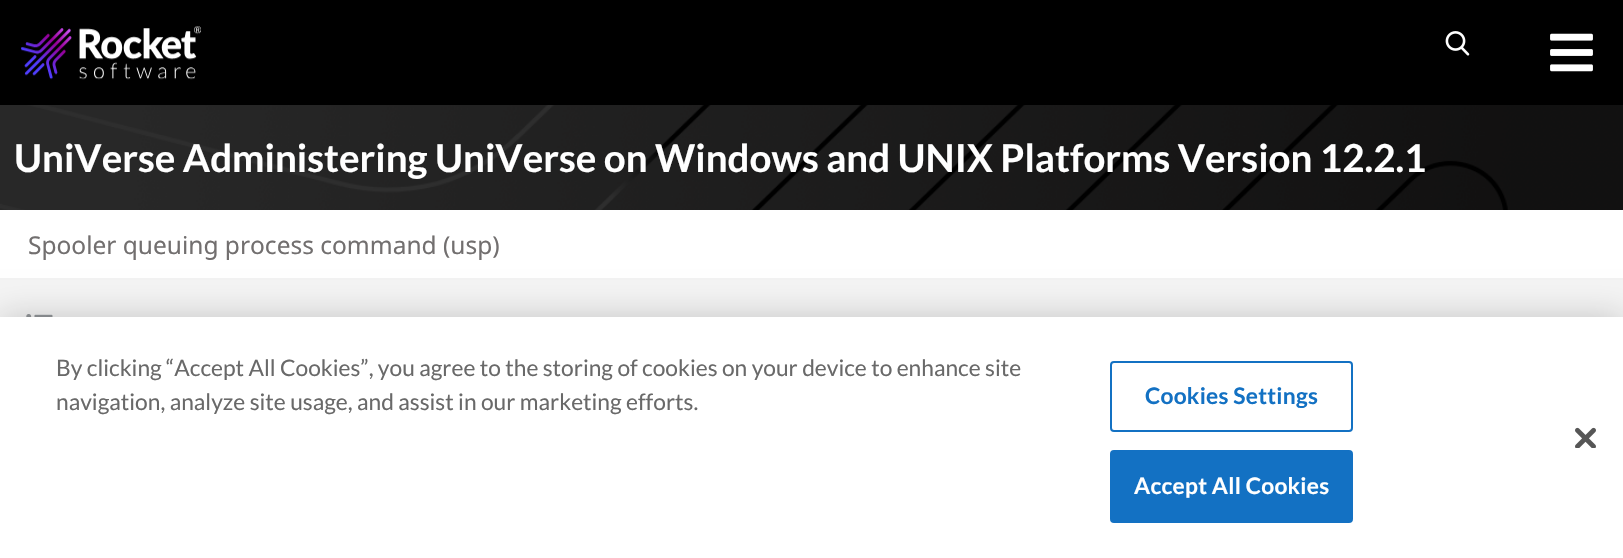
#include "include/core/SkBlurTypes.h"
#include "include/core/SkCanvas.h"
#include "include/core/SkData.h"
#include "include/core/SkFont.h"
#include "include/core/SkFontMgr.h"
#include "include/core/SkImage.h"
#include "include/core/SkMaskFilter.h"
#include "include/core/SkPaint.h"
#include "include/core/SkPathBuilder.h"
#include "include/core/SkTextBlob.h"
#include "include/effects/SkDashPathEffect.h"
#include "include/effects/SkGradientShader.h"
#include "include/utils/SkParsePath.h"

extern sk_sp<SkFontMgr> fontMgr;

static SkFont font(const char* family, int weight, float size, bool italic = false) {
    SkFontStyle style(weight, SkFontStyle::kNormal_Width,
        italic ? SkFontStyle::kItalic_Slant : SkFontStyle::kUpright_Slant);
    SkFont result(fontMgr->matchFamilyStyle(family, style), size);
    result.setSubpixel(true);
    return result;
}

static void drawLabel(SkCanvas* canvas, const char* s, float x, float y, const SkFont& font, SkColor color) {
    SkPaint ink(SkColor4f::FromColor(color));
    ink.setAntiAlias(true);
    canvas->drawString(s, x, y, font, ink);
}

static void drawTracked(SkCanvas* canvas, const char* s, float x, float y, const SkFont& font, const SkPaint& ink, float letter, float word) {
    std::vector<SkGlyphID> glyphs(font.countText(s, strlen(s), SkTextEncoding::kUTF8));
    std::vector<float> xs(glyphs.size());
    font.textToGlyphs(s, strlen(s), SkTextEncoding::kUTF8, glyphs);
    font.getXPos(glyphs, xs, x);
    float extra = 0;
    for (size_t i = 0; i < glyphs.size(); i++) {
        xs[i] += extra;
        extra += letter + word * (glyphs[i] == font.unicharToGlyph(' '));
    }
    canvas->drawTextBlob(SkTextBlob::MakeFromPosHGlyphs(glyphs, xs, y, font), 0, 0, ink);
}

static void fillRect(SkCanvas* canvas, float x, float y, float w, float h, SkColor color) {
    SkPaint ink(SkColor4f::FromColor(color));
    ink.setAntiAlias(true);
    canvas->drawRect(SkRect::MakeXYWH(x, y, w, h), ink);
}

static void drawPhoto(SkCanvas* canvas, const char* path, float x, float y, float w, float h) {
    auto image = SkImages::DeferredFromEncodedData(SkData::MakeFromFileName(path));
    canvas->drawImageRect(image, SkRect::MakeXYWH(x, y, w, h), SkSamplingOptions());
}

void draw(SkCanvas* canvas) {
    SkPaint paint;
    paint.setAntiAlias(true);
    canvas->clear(0xFFFFFFFF);
    fillRect(canvas, 0, 0, 1623, 105, 0xFF000000);
    drawPhoto(canvas, "assets/img1.png", 21, 26, 180, 54);
    drawPhoto(canvas, "assets/img2.png", 1445, 31, 25, 25);
    drawPhoto(canvas, "assets/img3.png", 1550, 33, 43, 39);
    drawPhoto(canvas, "assets/img4.png", 0, 105, 1623, 105);
    SkFont font1 = font("Lato", 700, 38.5f);
    drawLabel(canvas, "UniVerse Administering UniVerse on Windows and UNIX Platforms Version 12.2.1", 14, 172, font1, 0xFFFFFFFF);
    fillRect(canvas, 0, 278, 1623, 2, 0xFFF2F2F2);
    SkFont font2 = font("Noto Sans", 400, 24.5f);
    drawLabel(canvas, "Spooler queuing process command (usp)", 28, 254, font2, 0xFF726F6F);
    fillRect(canvas, 0, 280, 1623, 37, 0xFFF4F4F4);
    drawPhoto(canvas, "assets/img5.png", 26, 314, 27, 3);
    paint.setColor(0x33000000);
    paint.setMaskFilter(SkMaskFilter::MakeBlur(kNormal_SkBlurStyle, 16));
    canvas->drawRect(SkRect::MakeXYWH(0, 317, 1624, 241), paint);
    paint.setMaskFilter(nullptr);
    fillRect(canvas, 0, 317, 1623, 241, 0xFFFFFFFF);
    SkFont font3 = font("Lato", 400, 22.75f);
    drawLabel(canvas, "By clicking “Accept All Cookies”, you agree to the storing of cookies on your device to enhance site", 56, 376, font3, 0xFF696969);
    drawLabel(canvas, "navigation, analyze site usage, and assist in our marketing efforts.", 56, 410, font3, 0xFF696969);
    paint.setStroke(true);
    paint.setStrokeWidth(2);
    paint.setColor(0xFF1371C3);
    canvas->drawRoundRect(SkRect::MakeXYWH(1111, 362, 241, 69), 3, 3, paint);
    SkFont font4 = font("Lato", 700, 22.75f);
    paint.setStroke(false);
    drawTracked(canvas, "Cookies Settings", 1145, 404, font4, paint, 0.25f, 0);
    canvas->drawRoundRect(SkRect::MakeXYWH(1111, 451, 241, 71), 3, 3, paint);
    paint.setStroke(true);
    canvas->drawRoundRect(SkRect::MakeXYWH(1111, 451, 241, 71), 3, 3, paint);
    paint.setStroke(false);
    paint.setColor(0xFFFFFFFF);
    drawTracked(canvas, "Accept All Cookies", 1134, 494, font4, paint, 0.25f, 0);
    drawPhoto(canvas, "assets/img6.png", 1575, 427, 21, 21);
}
